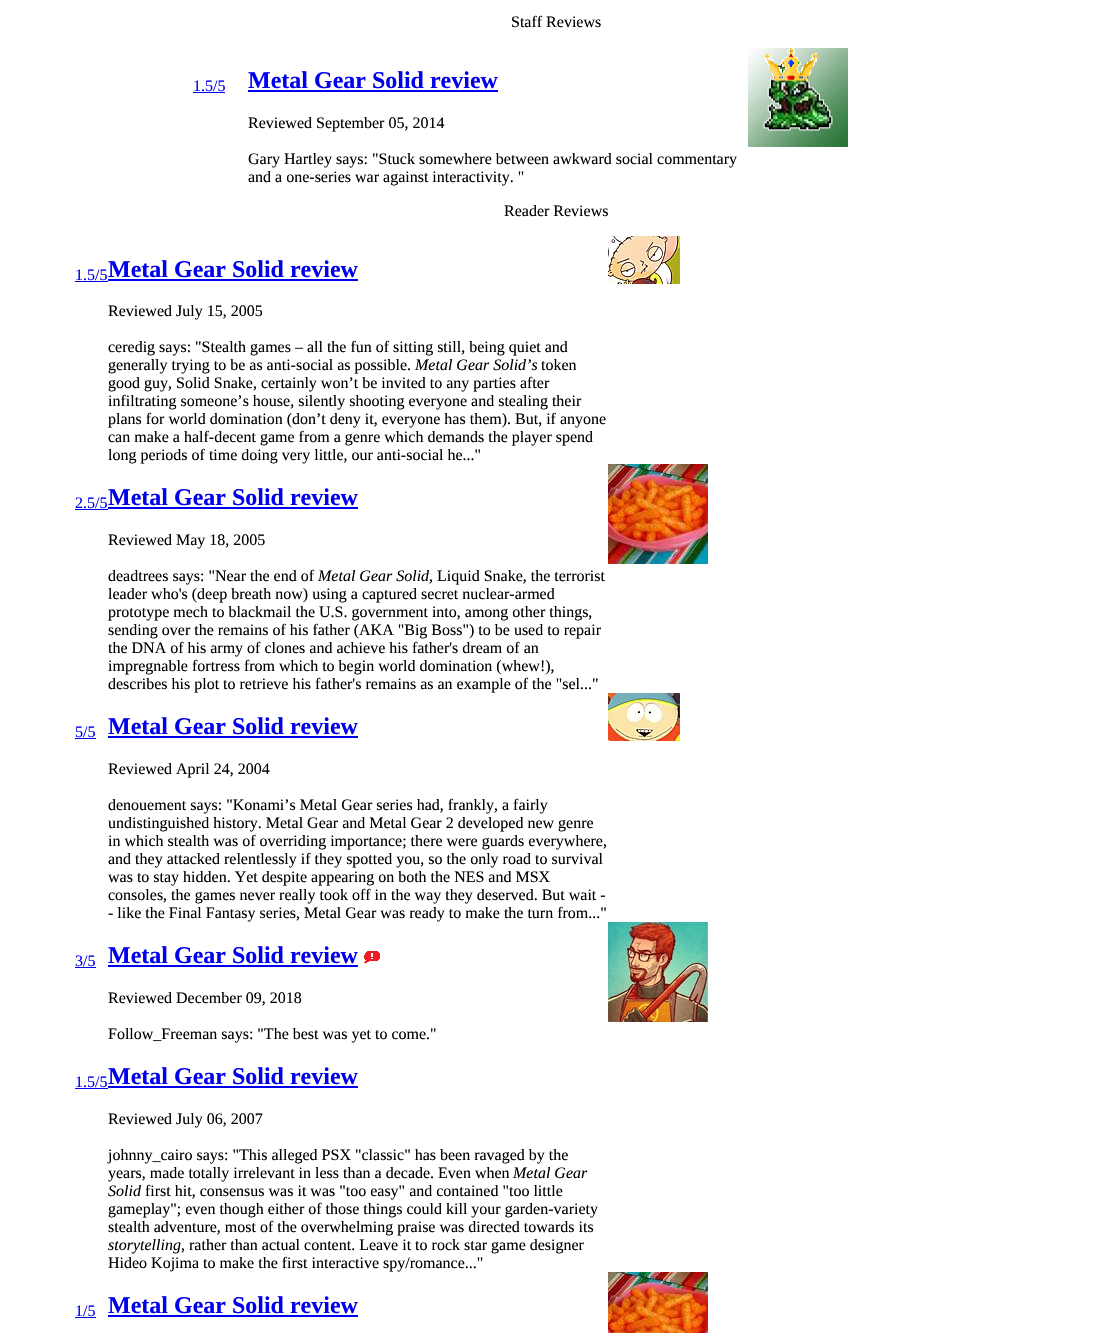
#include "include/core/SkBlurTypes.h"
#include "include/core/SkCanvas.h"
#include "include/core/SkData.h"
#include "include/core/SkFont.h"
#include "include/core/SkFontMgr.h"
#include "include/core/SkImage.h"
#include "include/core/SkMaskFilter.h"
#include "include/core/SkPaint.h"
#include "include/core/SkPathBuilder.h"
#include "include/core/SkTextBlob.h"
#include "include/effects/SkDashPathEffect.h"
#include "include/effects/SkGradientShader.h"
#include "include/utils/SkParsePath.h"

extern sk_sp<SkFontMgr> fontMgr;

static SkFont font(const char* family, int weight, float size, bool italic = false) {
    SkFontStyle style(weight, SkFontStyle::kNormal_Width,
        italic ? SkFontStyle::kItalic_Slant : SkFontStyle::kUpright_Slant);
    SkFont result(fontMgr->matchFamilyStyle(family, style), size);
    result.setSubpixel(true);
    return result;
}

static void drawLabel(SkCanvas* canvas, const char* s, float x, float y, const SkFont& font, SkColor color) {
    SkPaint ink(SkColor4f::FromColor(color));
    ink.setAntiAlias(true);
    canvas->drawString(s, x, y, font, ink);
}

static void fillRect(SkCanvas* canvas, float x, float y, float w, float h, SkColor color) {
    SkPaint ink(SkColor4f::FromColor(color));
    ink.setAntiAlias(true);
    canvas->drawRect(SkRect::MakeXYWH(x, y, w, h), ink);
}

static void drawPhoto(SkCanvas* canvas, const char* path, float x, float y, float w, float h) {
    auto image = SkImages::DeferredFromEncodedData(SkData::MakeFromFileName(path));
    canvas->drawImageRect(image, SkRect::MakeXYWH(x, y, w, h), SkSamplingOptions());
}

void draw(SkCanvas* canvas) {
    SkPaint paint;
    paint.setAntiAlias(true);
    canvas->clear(0xFFFFFFFF);
    SkFont font1 = font("Liberation Serif", 400, 16);
    drawLabel(canvas, "Staff Reviews", 511, 27, font1, 0xFF000000);
    drawLabel(canvas, "1.5/5", 193, 91, font1, 0xFF0000EE);
    fillRect(canvas, 193, 92, 32, 1, 0xFF0000EE);
    SkFont font2 = font("Liberation Serif", 700, 24);
    drawLabel(canvas, "Metal Gear Solid review", 248, 88, font2, 0xFF0000EE);
    fillRect(canvas, 248, 90, 250, 2, 0xFF0000EE);
    drawLabel(canvas, "Reviewed September 05, 2014", 248, 128, font1, 0xFF000000);
    drawLabel(canvas, "Gary Hartley says: \"Stuck somewhere between awkward social commentary", 248, 164, font1, 0xFF000000);
    drawLabel(canvas, "and a one-series war against interactivity. \"", 248, 182, font1, 0xFF000000);
    drawPhoto(canvas, "assets/img1.png", 748, 48, 100, 99);
    drawLabel(canvas, "Reader Reviews", 504, 216, font1, 0xFF000000);
    drawLabel(canvas, "1.5/5", 75, 280, font1, 0xFF0000EE);
    fillRect(canvas, 75, 281, 33, 1, 0xFF0000EE);
    drawLabel(canvas, "Metal Gear Solid review", 108, 277, font2, 0xFF0000EE);
    fillRect(canvas, 108, 279, 250, 2, 0xFF0000EE);
    drawLabel(canvas, "Reviewed July 15, 2005", 108, 316, font1, 0xFF000000);
    drawLabel(canvas, "ceredig says: \"Stealth games – all the fun of sitting still, being quiet and", 108, 352, font1, 0xFF000000);
    drawLabel(canvas, "generally trying to be as anti-social as possible.", 108, 370, font1, 0xFF000000);
    SkFont font3 = font("Liberation Serif", 400, 16, true);
    drawLabel(canvas, "Metal Gear Solid’s", 415, 370, font3, 0xFF000000);
    drawLabel(canvas, "token", 541, 370, font1, 0xFF000000);
    drawLabel(canvas, "good guy, Solid Snake, certainly won’t be invited to any parties after", 108, 388, font1, 0xFF000000);
    drawLabel(canvas, "infiltrating someone’s house, silently shooting everyone and stealing their", 108, 406, font1, 0xFF000000);
    drawLabel(canvas, "plans for world domination (don’t deny it, everyone has them). But, if anyone", 108, 424, font1, 0xFF000000);
    drawLabel(canvas, "can make a half-decent game from a genre which demands the player spend", 108, 442, font1, 0xFF000000);
    drawLabel(canvas, "long periods of time doing very little, our anti-social he...\"", 108, 460, font1, 0xFF000000);
    drawPhoto(canvas, "assets/img2.png", 608, 236, 72, 48);
    drawLabel(canvas, "2.5/5", 75, 508, font1, 0xFF0000EE);
    fillRect(canvas, 75, 509, 33, 1, 0xFF0000EE);
    drawLabel(canvas, "Metal Gear Solid review", 108, 505, font2, 0xFF0000EE);
    fillRect(canvas, 108, 507, 250, 2, 0xFF0000EE);
    drawLabel(canvas, "Reviewed May 18, 2005", 108, 545, font1, 0xFF000000);
    drawLabel(canvas, "deadtrees says: \"Near the end of", 108, 581, font1, 0xFF000000);
    drawLabel(canvas, "Metal Gear Solid", 318, 581, font3, 0xFF000000);
    drawLabel(canvas, ", Liquid Snake, the terrorist", 429, 581, font1, 0xFF000000);
    drawLabel(canvas, "leader who's (deep breath now) using a captured secret nuclear-armed", 108, 599, font1, 0xFF000000);
    drawLabel(canvas, "prototype mech to blackmail the U.S. government into, among other things,", 108, 617, font1, 0xFF000000);
    drawLabel(canvas, "sending over the remains of his father (AKA \"Big Boss\") to be used to repair", 108, 635, font1, 0xFF000000);
    drawLabel(canvas, "the DNA of his army of clones and achieve his father's dream of an", 108, 653, font1, 0xFF000000);
    drawLabel(canvas, "impregnable fortress from which to begin world domination (whew!),", 108, 671, font1, 0xFF000000);
    drawLabel(canvas, "describes his plot to retrieve his father's remains as an example of the \"sel...\"", 108, 689, font1, 0xFF000000);
    drawPhoto(canvas, "assets/img3.png", 608, 464, 100, 100);
    drawLabel(canvas, "5/5", 75, 737, font1, 0xFF0000EE);
    fillRect(canvas, 75, 738, 21, 1, 0xFF0000EE);
    drawLabel(canvas, "Metal Gear Solid review", 108, 734, font2, 0xFF0000EE);
    fillRect(canvas, 108, 736, 250, 2, 0xFF0000EE);
    drawLabel(canvas, "Reviewed April 24, 2004", 108, 774, font1, 0xFF000000);
    drawLabel(canvas, "denouement says: \"Konami’s Metal Gear series had, frankly, a fairly", 108, 810, font1, 0xFF000000);
    drawLabel(canvas, "undistinguished history. Metal Gear and Metal Gear 2 developed new genre", 108, 828, font1, 0xFF000000);
    drawLabel(canvas, "in which stealth was of overriding importance; there were guards everywhere,", 108, 846, font1, 0xFF000000);
    drawLabel(canvas, "and they attacked relentlessly if they spotted you, so the only road to survival", 108, 864, font1, 0xFF000000);
    drawLabel(canvas, "was to stay hidden. Yet despite appearing on both the NES and MSX", 108, 882, font1, 0xFF000000);
    drawLabel(canvas, "consoles, the games never really took off in the way they deserved. But wait -", 108, 900, font1, 0xFF000000);
    drawLabel(canvas, "- like the Final Fantasy series, Metal Gear was ready to make the turn from...\"", 108, 918, font1, 0xFF000000);
    drawPhoto(canvas, "assets/img4.png", 608, 693, 72, 48);
    drawLabel(canvas, "3/5", 75, 966, font1, 0xFF0000EE);
    fillRect(canvas, 75, 967, 21, 1, 0xFF0000EE);
    drawLabel(canvas, "Metal Gear Solid review", 108, 963, font2, 0xFF0000EE);
    fillRect(canvas, 108, 965, 250, 2, 0xFF0000EE);
    drawPhoto(canvas, "assets/img5.png", 364, 951, 16, 12);
    drawLabel(canvas, "Reviewed December 09, 2018", 108, 1003, font1, 0xFF000000);
    drawLabel(canvas, "Follow_Freeman says: \"The best was yet to come.\"", 108, 1039, font1, 0xFF000000);
    drawPhoto(canvas, "assets/img6.png", 608, 922, 100, 100);
    drawLabel(canvas, "1.5/5", 75, 1087, font1, 0xFF0000EE);
    fillRect(canvas, 75, 1088, 33, 1, 0xFF0000EE);
    drawLabel(canvas, "Metal Gear Solid review", 108, 1084, font2, 0xFF0000EE);
    fillRect(canvas, 108, 1086, 250, 2, 0xFF0000EE);
    drawLabel(canvas, "Reviewed July 06, 2007", 108, 1124, font1, 0xFF000000);
    drawLabel(canvas, "johnny_cairo says: \"This alleged PSX \"classic\" has been ravaged by the", 108, 1160, font1, 0xFF000000);
    drawLabel(canvas, "years, made totally irrelevant in less than a decade. Even when", 108, 1178, font1, 0xFF000000);
    drawLabel(canvas, "Metal Gear", 513, 1178, font3, 0xFF000000);
    drawLabel(canvas, "Solid", 108, 1196, font3, 0xFF000000);
    drawLabel(canvas, "first hit, consensus was it was \"too easy\" and contained \"too little", 145, 1196, font1, 0xFF000000);
    drawLabel(canvas, "gameplay\"; even though either of those things could kill your garden-variety", 108, 1214, font1, 0xFF000000);
    drawLabel(canvas, "stealth adventure, most of the overwhelming praise was directed towards its", 108, 1232, font1, 0xFF000000);
    drawLabel(canvas, "storytelling", 108, 1250, font3, 0xFF000000);
    drawLabel(canvas, ", rather than actual content. Leave it to rock star game designer", 181, 1250, font1, 0xFF000000);
    drawLabel(canvas, "Hideo Kojima to make the first interactive spy/romance...\"", 108, 1268, font1, 0xFF000000);
    drawLabel(canvas, "1/5", 75, 1316, font1, 0xFF0000EE);
    fillRect(canvas, 75, 1317, 21, 1, 0xFF0000EE);
    drawLabel(canvas, "Metal Gear Solid review", 108, 1313, font2, 0xFF0000EE);
    fillRect(canvas, 108, 1315, 250, 2, 0xFF0000EE);
    drawPhoto(canvas, "assets/img7.png", 608, 1272, 100, 61);
}
